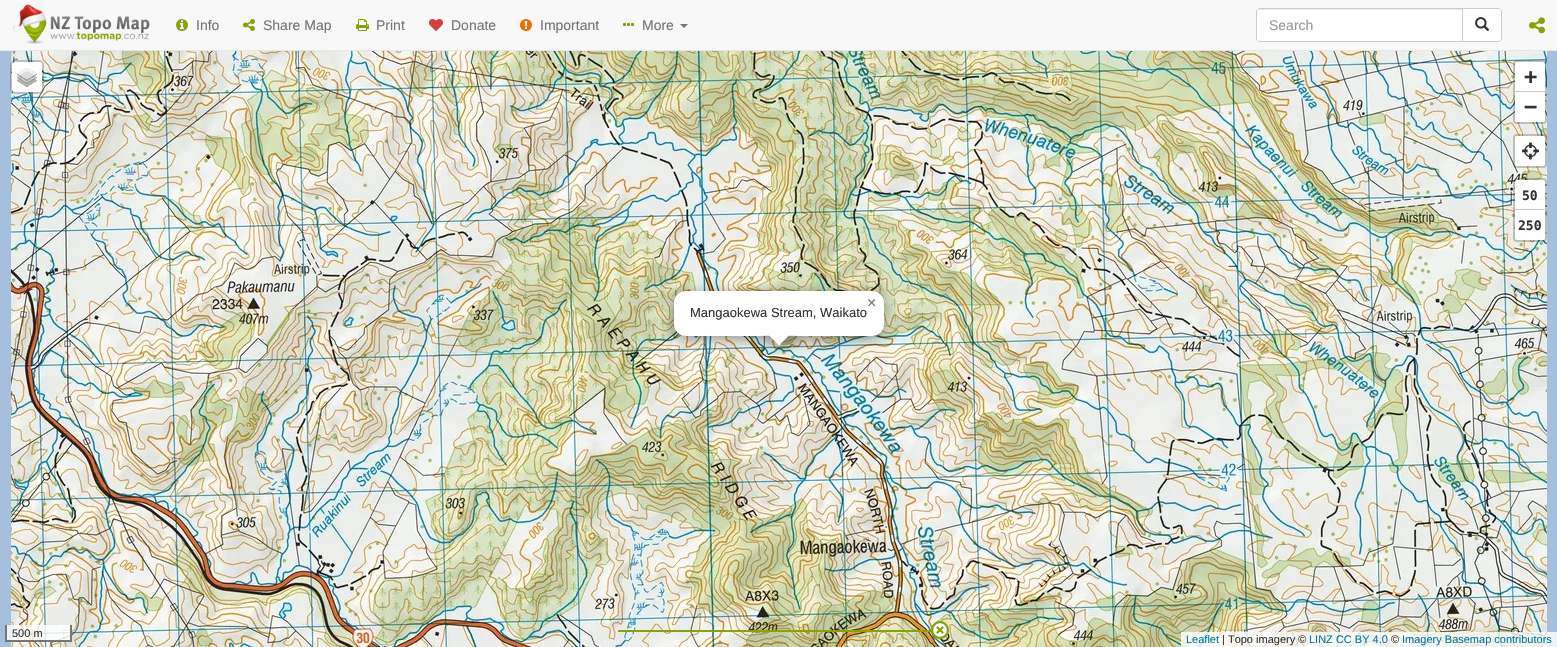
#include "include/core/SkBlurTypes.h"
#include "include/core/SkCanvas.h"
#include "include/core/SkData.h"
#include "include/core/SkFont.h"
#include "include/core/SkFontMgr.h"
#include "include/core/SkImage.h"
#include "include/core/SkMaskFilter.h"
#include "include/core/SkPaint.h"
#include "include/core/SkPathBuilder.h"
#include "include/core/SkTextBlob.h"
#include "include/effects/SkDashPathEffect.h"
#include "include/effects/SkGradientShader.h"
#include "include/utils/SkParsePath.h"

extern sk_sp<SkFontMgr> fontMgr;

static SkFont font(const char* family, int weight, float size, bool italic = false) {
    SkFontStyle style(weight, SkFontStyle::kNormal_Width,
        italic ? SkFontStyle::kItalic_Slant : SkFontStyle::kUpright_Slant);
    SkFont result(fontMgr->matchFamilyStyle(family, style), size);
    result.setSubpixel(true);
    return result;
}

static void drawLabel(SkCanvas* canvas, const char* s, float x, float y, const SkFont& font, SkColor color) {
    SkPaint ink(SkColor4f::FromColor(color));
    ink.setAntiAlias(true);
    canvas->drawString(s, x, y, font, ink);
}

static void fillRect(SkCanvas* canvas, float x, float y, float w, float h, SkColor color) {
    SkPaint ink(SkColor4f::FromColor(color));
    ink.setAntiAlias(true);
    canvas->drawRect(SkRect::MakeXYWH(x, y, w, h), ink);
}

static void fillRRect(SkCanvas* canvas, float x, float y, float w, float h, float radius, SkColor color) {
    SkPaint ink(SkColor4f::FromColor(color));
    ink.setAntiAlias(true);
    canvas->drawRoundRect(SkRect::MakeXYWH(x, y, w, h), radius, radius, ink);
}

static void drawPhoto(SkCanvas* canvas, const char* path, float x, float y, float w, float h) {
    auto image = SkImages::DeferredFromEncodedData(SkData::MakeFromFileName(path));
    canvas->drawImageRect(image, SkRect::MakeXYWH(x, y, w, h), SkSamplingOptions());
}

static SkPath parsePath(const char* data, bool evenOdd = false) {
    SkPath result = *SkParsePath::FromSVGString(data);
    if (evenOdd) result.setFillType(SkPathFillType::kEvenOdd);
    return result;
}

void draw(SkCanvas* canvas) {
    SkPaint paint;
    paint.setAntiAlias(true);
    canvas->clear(0xFFA5BFDD);
    fillRect(canvas, 0, 0, 1557, 50, 0xFFF8F8F8);
    fillRect(canvas, 0, 50, 1557, 1, 0xFFE7E7E7);
    drawPhoto(canvas, "assets/img1.png", 12, 4, 138, 40);
    drawPhoto(canvas, "assets/img2.png", 176, 19, 12, 12);
    SkFont font1 = font("Liberation Sans", 400, 14);
    drawLabel(canvas, "Info", 196, 30, font1, 0xFF757575);
    drawPhoto(canvas, "assets/img3.png", 243, 19, 12, 12);
    drawLabel(canvas, "Share Map", 263, 30, font1, 0xFF757575);
    drawPhoto(canvas, "assets/img4.png", 356, 19, 13, 12);
    drawLabel(canvas, "Print", 376, 30, font1, 0xFF757575);
    drawPhoto(canvas, "assets/img5.png", 429, 19, 14, 12);
    drawLabel(canvas, "Donate", 451, 30, font1, 0xFF757575);
    drawPhoto(canvas, "assets/img6.png", 520, 19, 12, 12);
    drawLabel(canvas, "Important", 540, 30, font1, 0xFF757575);
    drawPhoto(canvas, "assets/img7.png", 623, 23, 11, 3);
    drawLabel(canvas, "More", 642, 30, font1, 0xFF757575);
    paint.setColor(0xFF777777);
    canvas->drawPath(parsePath("M680 24H688L684 28Z"), paint);
    paint.setColor(0xFFFFFFFF);
    canvas->drawPath(parsePath("M1260 8H1463V42H1260C1258 42 1256 40 1256 38V12C1256 10 1258 8 1260 8Z"), paint);
    paint.setColor(0xFFECECEC);
    canvas->drawPath(parsePath("M1260 10H1462V9H1259C1257 10 1257 11 1257 13C1257 11 1258 10 1260 10Z"), paint);
    paint.setStroke(true);
    paint.setStrokeWidth(1);
    paint.setColor(0xFFCCCCCC);
    canvas->drawPath(parsePath("M1260 8.5H1462.5V41.5H1260C1258 41.5 1256.5 40 1256.5 38V12C1256.5 10 1258 8.5 1260 8.5Z"), paint);
    drawLabel(canvas, "Search", 1269, 30, font1, 0xFF999999);
    paint.setStroke(false);
    paint.setColor(0xFFFFFFFF);
    canvas->drawPath(parsePath("M1462.5 8.5H1498C1500 8.5 1501.5 10 1501.5 12V38C1501.5 40 1500 41.5 1498 41.5H1462.5Z"), paint);
    paint.setStroke(true);
    paint.setColor(0xFFCCCCCC);
    canvas->drawPath(parsePath("M1462.5 8.5H1498C1500 8.5 1501.5 10 1501.5 12V38C1501.5 40 1500 41.5 1498 41.5H1462.5Z"), paint);
    drawPhoto(canvas, "assets/img8.png", 1475, 17, 15, 14);
    drawPhoto(canvas, "assets/img9.png", 1529, 17, 16, 17);
    drawPhoto(canvas, "assets/img13.png", 11, 51, 256, 132);
    fillRRect(canvas, 12, 62, 30, 30, 3, 0xFFFFFFFF);
    paint.setStrokeWidth(2);
    paint.setColor(0x33000000);
    canvas->drawRoundRect(SkRect::MakeXYWH(11, 61, 32, 32), 4, 4, paint);
    drawPhoto(canvas, "assets/img10.png", 17, 67, 20, 20);
    drawPhoto(canvas, "assets/img18.png", 1291, 51, 256, 132);
    canvas->drawRoundRect(SkRect::MakeXYWH(1514, 61, 32, 62), 3, 3, paint);
    paint.setStroke(false);
    paint.setColor(0xFFFFFFFF);
    canvas->drawPath(parsePath("M1517 62H1543C1544 62 1545 63 1545 64V92H1515V64C1515 63 1516 62 1517 62Z"), paint);
    fillRect(canvas, 1515, 91, 30, 1, 0xFFCCCCCC);
    SkFont font2 = font("DejaVu Sans Mono", 700, 22);
    drawLabel(canvas, "+", 1524, 84, font2, 0xFF333333);
    canvas->drawPath(parsePath("M1515 92H1545V120C1545 121 1544 122 1543 122H1517C1516 122 1515 121 1515 120Z"), paint);
    drawLabel(canvas, "−", 1524, 114, font2, 0xFF333333);
    paint.setStroke(true);
    paint.setColor(0x33000000);
    canvas->drawRoundRect(SkRect::MakeXYWH(1514, 135, 32, 32), 3, 3, paint);
    fillRRect(canvas, 1515, 136, 30, 30, 2, 0xFFFFFFFF);
    drawPhoto(canvas, "assets/img11.png", 1522, 142, 17, 18);
    drawPhoto(canvas, "assets/img24.png", 1291, 183, 256, 256);
    canvas->drawRoundRect(SkRect::MakeXYWH(1514, 179, 32, 62), 3, 3, paint);
    paint.setStroke(false);
    paint.setColor(0xFFFFFFFF);
    canvas->drawPath(parsePath("M1517 180H1543C1544 180 1545 181 1545 182V210H1515V182C1515 181 1516 180 1517 180Z"), paint);
    fillRect(canvas, 1515, 209, 30, 1, 0xFFCCCCCC);
    SkFont font3 = font("DejaVu Sans Mono", 700, 13);
    drawLabel(canvas, "50", 1522, 200, font3, 0xFF333333);
    canvas->drawPath(parsePath("M1515 210H1545V238C1545 239 1544 240 1543 240H1517C1516 240 1515 239 1515 238Z"), paint);
    drawLabel(canvas, "250", 1518, 230, font3, 0xFF333333);
    drawPhoto(canvas, "assets/img25.png", 11, 439, 256, 208);
    fillRect(canvas, 7, 625, 63, 15, 0xCCFFFFFF);
    fillRect(canvas, 70, 625, 2, 17, 0xFF777777);
    fillRect(canvas, 5, 640, 67, 2, 0xFF777777);
    fillRect(canvas, 5, 625, 2, 17, 0xFF777777);
    SkFont font4 = font("Liberation Sans", 400, 11);
    drawLabel(canvas, "500 m", 12, 637, font4, 0xFF333333);
    drawPhoto(canvas, "assets/img27.png", 523, 439, 256, 208);
    drawPhoto(canvas, "assets/img28.png", 779, 439, 256, 208);
    fillRect(canvas, 618, 630, 322, 2, 0xFF86A406);
    drawPhoto(canvas, "assets/img12.png", 931, 621, 18, 18);
    drawPhoto(canvas, "assets/img29.png", 1035, 439, 256, 208);
    drawPhoto(canvas, "assets/img30.png", 1291, 439, 256, 208);
    fillRect(canvas, 1181, 632, 376, 15, 0xCCFFFFFF);
    drawLabel(canvas, "Leaflet", 1186, 643, font4, 0xFF0078A8);
    drawLabel(canvas, "| Topo imagery ©", 1222, 643, font4, 0xFF333333);
    drawLabel(canvas, "LINZ CC BY 4.0", 1309, 643, font4, 0xFF0078A8);
    drawLabel(canvas, "©", 1391, 643, font4, 0xFF333333);
    drawLabel(canvas, "Imagery Basemap contributors", 1402, 643, font4, 0xFF0078A8);
    drawPhoto(canvas, "assets/img14.png", 267, 51, 256, 132);
    drawPhoto(canvas, "assets/img15.png", 523, 51, 256, 132);
    drawPhoto(canvas, "assets/img16.png", 779, 51, 256, 132);
    drawPhoto(canvas, "assets/img17.png", 1035, 51, 256, 132);
    drawPhoto(canvas, "assets/img19.png", 11, 183, 256, 256);
    drawPhoto(canvas, "assets/img20.png", 267, 183, 256, 256);
    drawPhoto(canvas, "assets/img21.png", 523, 183, 256, 256);
    drawPhoto(canvas, "assets/img22.png", 779, 183, 256, 256);
    drawPhoto(canvas, "assets/img23.png", 1035, 183, 256, 256);
    drawPhoto(canvas, "assets/img26.png", 267, 439, 256, 208);
    paint.setColor(0x66000000);
    paint.setMaskFilter(SkMaskFilter::MakeBlur(kNormal_SkBlurStyle, 7));
    canvas->drawRoundRect(SkRect::MakeXYWH(674, 294, 210, 45), 12, 12, paint);
    paint.setMaskFilter(nullptr);
    fillRRect(canvas, 674, 291, 210, 45, 12, 0xFFFFFFFF);
    SkFont font5 = font("Liberation Sans", 400, 16);
    drawLabel(canvas, "×", 867, 308, font5, 0xFF757575);
    canvas->save();
    canvas->clipRect(SkRect::MakeXYWH(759, 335, 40, 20));
    paint.setMaskFilter(SkMaskFilter::MakeBlur(kNormal_SkBlurStyle, 7));
    canvas->drawRect(SkRect::MakeXYWH(771, 328, 17, 17), paint);
    paint.setMaskFilter(nullptr);
    canvas->restore();
    canvas->save();
    canvas->clipRect(SkRect::MakeXYWH(759, 335, 40, 20));
    paint.setColor(0xFFFFFFFF);
    canvas->drawPath(parsePath("M779 321.5L791 333.5L779 345.5L767 333.5Z"), paint);
    canvas->restore();
    SkFont font6 = font("Liberation Sans", 400, 13);
    drawLabel(canvas, "Mangaokewa Stream, Waikato", 690, 317, font6, 0xFF333333);
}
